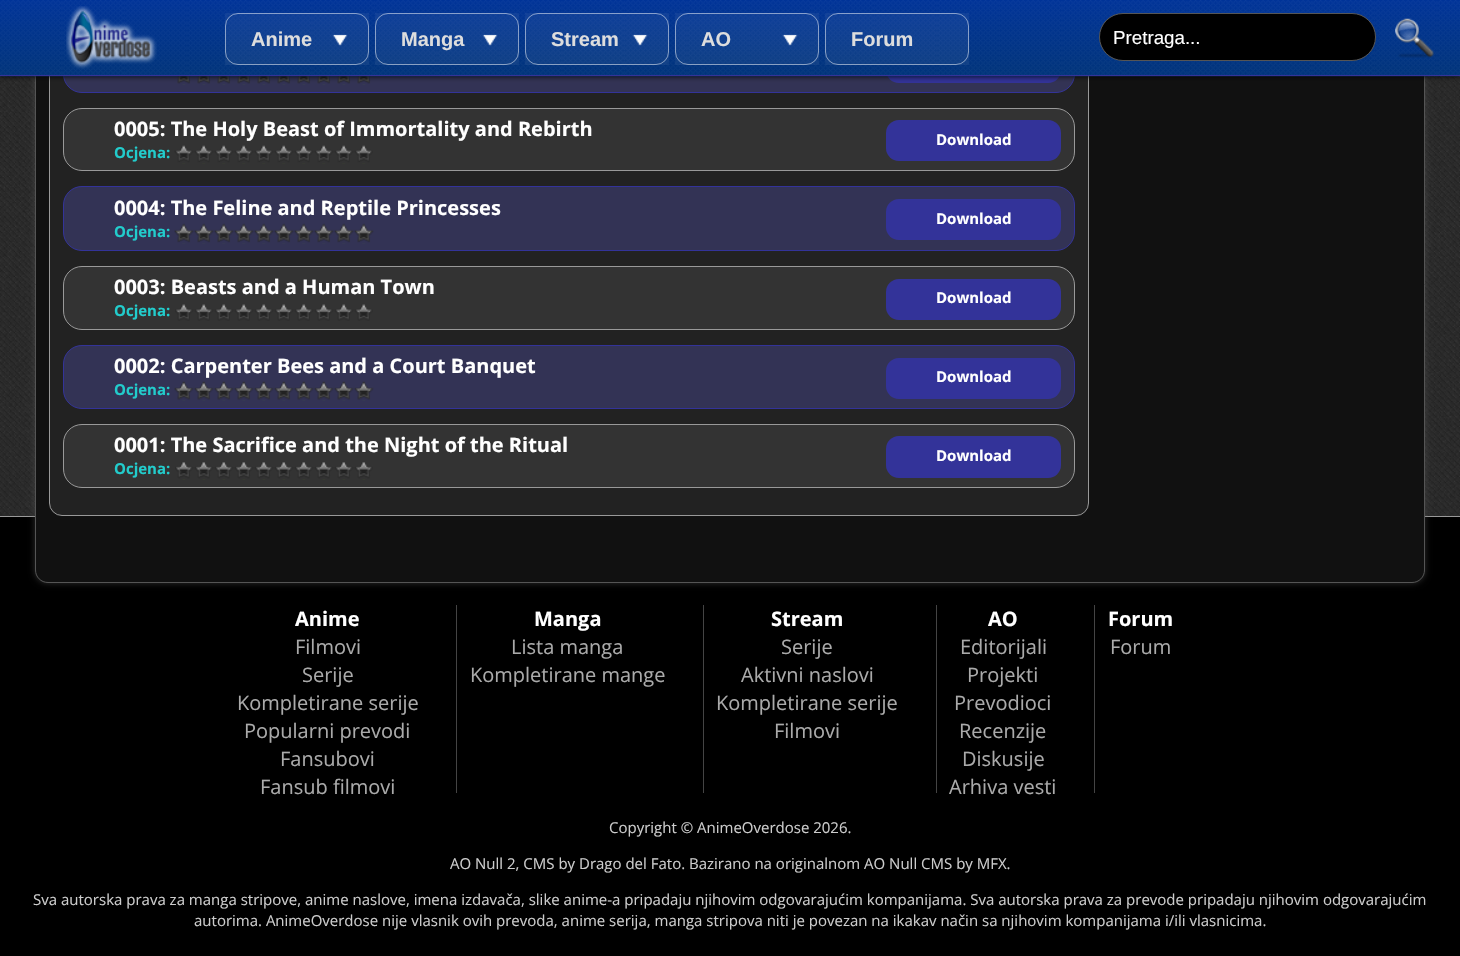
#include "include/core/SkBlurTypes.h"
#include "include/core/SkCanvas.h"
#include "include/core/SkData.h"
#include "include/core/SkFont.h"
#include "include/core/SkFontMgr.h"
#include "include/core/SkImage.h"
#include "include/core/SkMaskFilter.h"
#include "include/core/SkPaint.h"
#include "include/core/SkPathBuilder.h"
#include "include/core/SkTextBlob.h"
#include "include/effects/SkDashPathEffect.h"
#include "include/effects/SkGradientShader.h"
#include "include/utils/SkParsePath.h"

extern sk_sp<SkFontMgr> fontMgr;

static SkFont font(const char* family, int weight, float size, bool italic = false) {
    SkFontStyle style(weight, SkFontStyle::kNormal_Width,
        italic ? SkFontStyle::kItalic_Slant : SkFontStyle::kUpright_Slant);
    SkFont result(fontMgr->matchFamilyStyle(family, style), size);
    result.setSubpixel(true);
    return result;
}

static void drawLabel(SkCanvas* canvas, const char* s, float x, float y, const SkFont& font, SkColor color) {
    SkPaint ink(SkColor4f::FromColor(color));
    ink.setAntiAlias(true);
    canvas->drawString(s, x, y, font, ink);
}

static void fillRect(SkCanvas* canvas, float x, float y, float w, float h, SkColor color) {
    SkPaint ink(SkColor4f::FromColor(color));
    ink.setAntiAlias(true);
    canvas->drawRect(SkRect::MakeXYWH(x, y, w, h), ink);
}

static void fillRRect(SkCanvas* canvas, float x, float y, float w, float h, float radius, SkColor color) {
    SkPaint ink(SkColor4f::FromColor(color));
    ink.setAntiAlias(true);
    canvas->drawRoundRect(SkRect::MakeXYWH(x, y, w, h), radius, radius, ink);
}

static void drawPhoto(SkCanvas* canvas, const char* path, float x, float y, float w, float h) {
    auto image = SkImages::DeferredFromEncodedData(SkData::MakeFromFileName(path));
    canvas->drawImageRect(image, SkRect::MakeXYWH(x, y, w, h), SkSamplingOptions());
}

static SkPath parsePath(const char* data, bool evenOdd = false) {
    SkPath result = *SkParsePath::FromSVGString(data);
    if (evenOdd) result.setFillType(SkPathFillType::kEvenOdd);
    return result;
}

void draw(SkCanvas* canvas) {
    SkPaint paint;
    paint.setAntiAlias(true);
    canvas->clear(0xFFFFFFFF);
    drawPhoto(canvas, "assets/img1.png", 0, 76, 1460, 440);
    fillRect(canvas, 0, 517, 1460, 439, 0xFF000000);
    fillRect(canvas, 0, 516, 1460, 1, 0xFF999999);
    paint.setColor(0x805A5A5A);
    paint.setMaskFilter(SkMaskFilter::MakeBlur(kNormal_SkBlurStyle, 3));
    canvas->drawRoundRect(SkRect::MakeXYWH(35, -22, 1390, 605), 13, 13, paint);
    paint.setMaskFilter(nullptr);
    paint.setColor(0xFF111111);
    canvas->drawPath(parsePath("M35.5-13.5H1412C1419-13.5 1424.5-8 1424.5-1V570C1424.5 577 1419 582.5 1412 582.5H48C41 582.5 35.5 577 35.5 570Z"), paint);
    paint.setStroke(true);
    paint.setStrokeWidth(1);
    paint.setColor(0xFF555555);
    canvas->drawPath(parsePath("M35.5-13.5H1412C1419-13.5 1424.5-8 1424.5-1V570C1424.5 577 1419 582.5 1412 582.5H48C41 582.5 35.5 577 35.5 570Z"), paint);
    paint.setStroke(false);
    paint.setColor(0xFF222222);
    canvas->drawRoundRect(SkRect::MakeXYWH(49.5f, -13.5f, 1039, 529), 12.5f, 12.5f, paint);
    paint.setStroke(true);
    paint.setColor(0xFF999999);
    canvas->drawRoundRect(SkRect::MakeXYWH(49.5f, -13.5f, 1039, 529), 12.5f, 12.5f, paint);
    paint.setStroke(false);
    paint.setColor(0xFF333355);
    canvas->drawRoundRect(SkRect::MakeXYWH(63.5f, 29.5f, 1011, 63), 18.5f, 18.5f, paint);
    paint.setStroke(true);
    paint.setColor(0xFF333399);
    canvas->drawRoundRect(SkRect::MakeXYWH(63.5f, 29.5f, 1011, 63), 18.5f, 18.5f, paint);
    drawPhoto(canvas, "assets/img7.png", 177, 76, 194, 9);
    fillRRect(canvas, 886, 41, 175, 42, 13, 0xFF333399);
    paint.setStroke(false);
    paint.setColor(0xFF000000);
    paint.setMaskFilter(SkMaskFilter::MakeBlur(kNormal_SkBlurStyle, 3));
    canvas->drawRect(SkRect::MakeXYWH(0, 0, 1460, 76), paint);
    paint.setMaskFilter(nullptr);
    drawPhoto(canvas, "assets/img2.png", 0, 0, 1460, 77);
    fillRect(canvas, 0, 75, 1460, 1, 0xFF333399);
    drawPhoto(canvas, "assets/img3.png", 66, 6, 91, 63);
    fillRect(canvas, 225, 13, 144, 52, 0x0DFFFFFF);
    drawPhoto(canvas, "assets/img4.png", 332, 34, 16, 12);
    paint.setStroke(true);
    paint.setColor(0x80FFFFFF);
    canvas->drawRoundRect(SkRect::MakeXYWH(225.5f, 13.5f, 143, 51), 12.5f, 12.5f, paint);
    SkFont font1 = font("Liberation Sans", 700, 20);
    drawLabel(canvas, "Anime", 251, 46, font1, 0xFFDDDDDD);
    fillRect(canvas, 375, 13, 144, 52, 0x0DFFFFFF);
    drawPhoto(canvas, "assets/img4.png", 482, 34, 16, 12);
    canvas->drawRoundRect(SkRect::MakeXYWH(375.5f, 13.5f, 143, 51), 12.5f, 12.5f, paint);
    drawLabel(canvas, "Manga", 401, 46, font1, 0xFFDDDDDD);
    fillRect(canvas, 525, 13, 144, 52, 0x0DFFFFFF);
    drawPhoto(canvas, "assets/img5.png", 632, 34, 16, 12);
    canvas->drawRoundRect(SkRect::MakeXYWH(525.5f, 13.5f, 143, 51), 12.5f, 12.5f, paint);
    drawLabel(canvas, "Stream", 551, 46, font1, 0xFFDDDDDD);
    fillRect(canvas, 675, 13, 144, 52, 0x0DFFFFFF);
    drawPhoto(canvas, "assets/img5.png", 782, 34, 16, 12);
    canvas->drawRoundRect(SkRect::MakeXYWH(675.5f, 13.5f, 143, 51), 12.5f, 12.5f, paint);
    drawLabel(canvas, "AO", 701, 46, font1, 0xFFDDDDDD);
    fillRect(canvas, 825, 13, 144, 52, 0x0DFFFFFF);
    canvas->drawRoundRect(SkRect::MakeXYWH(825.5f, 13.5f, 143, 51), 12.5f, 12.5f, paint);
    drawLabel(canvas, "Forum", 851, 46, font1, 0xFFDDDDDD);
    paint.setStroke(false);
    paint.setColor(0xFF000000);
    canvas->drawRoundRect(SkRect::MakeXYWH(1099.5f, 13.5f, 276, 47), 23.5f, 23.5f, paint);
    paint.setStroke(true);
    paint.setColor(0xFF555555);
    canvas->drawRoundRect(SkRect::MakeXYWH(1099.5f, 13.5f, 276, 47), 23.5f, 23.5f, paint);
    SkFont font2 = font("Liberation Sans", 400, 18.75f);
    drawLabel(canvas, "Pretraga...", 1113, 44, font2, 0xFFFFFFFF);
    drawPhoto(canvas, "assets/img6.png", 1395, 18, 39, 40);
    paint.setStroke(false);
    paint.setColor(0xFF333333);
    canvas->drawRoundRect(SkRect::MakeXYWH(63.5f, 108.5f, 1011, 62), 18.5f, 18.5f, paint);
    paint.setStroke(true);
    paint.setColor(0xFF999999);
    canvas->drawRoundRect(SkRect::MakeXYWH(63.5f, 108.5f, 1011, 62), 18.5f, 18.5f, paint);
    SkFont font3 = font("Open Sans", 700, 20);
    drawLabel(canvas, "0005: The Holy Beast of Immortality and Rebirth", 114, 136, font3, 0xFFFFFFFF);
    fillRRect(canvas, 886, 120, 175, 41, 13, 0xFF333399);
    SkFont font4 = font("Open Sans", 700, 15);
    drawLabel(canvas, "Download", 936, 145, font4, 0xFFFFFFFF);
    drawLabel(canvas, "Ocjena:", 114, 158, font4, 0xFF22CCCC);
    drawPhoto(canvas, "assets/img8.png", 174, 145, 199, 19);
    paint.setStroke(false);
    paint.setColor(0xFF333355);
    canvas->drawRoundRect(SkRect::MakeXYWH(63.5f, 186.5f, 1011, 64), 18.5f, 18.5f, paint);
    paint.setStroke(true);
    paint.setColor(0xFF333399);
    canvas->drawRoundRect(SkRect::MakeXYWH(63.5f, 186.5f, 1011, 64), 18.5f, 18.5f, paint);
    drawLabel(canvas, "0004: The Feline and Reptile Princesses", 114, 215, font3, 0xFFFFFFFF);
    fillRRect(canvas, 886, 199, 175, 41, 13, 0xFF333399);
    drawLabel(canvas, "Download", 936, 224, font4, 0xFFFFFFFF);
    drawLabel(canvas, "Ocjena:", 114, 237, font4, 0xFF22CCCC);
    drawPhoto(canvas, "assets/img9.png", 174, 223, 200, 21);
    paint.setStroke(false);
    paint.setColor(0xFF333333);
    canvas->drawRoundRect(SkRect::MakeXYWH(63.5f, 266.5f, 1011, 63), 18.5f, 18.5f, paint);
    paint.setStroke(true);
    paint.setColor(0xFF999999);
    canvas->drawRoundRect(SkRect::MakeXYWH(63.5f, 266.5f, 1011, 63), 18.5f, 18.5f, paint);
    drawLabel(canvas, "0003: Beasts and a Human Town", 114, 294, font3, 0xFFFFFFFF);
    fillRRect(canvas, 886, 279, 175, 41, 13, 0xFF333399);
    drawLabel(canvas, "Download", 936, 303, font4, 0xFFFFFFFF);
    drawLabel(canvas, "Ocjena:", 114, 316, font4, 0xFF22CCCC);
    drawPhoto(canvas, "assets/img10.png", 175, 304, 198, 17);
    paint.setStroke(false);
    paint.setColor(0xFF333355);
    canvas->drawRoundRect(SkRect::MakeXYWH(63.5f, 345.5f, 1011, 63), 18.5f, 18.5f, paint);
    paint.setStroke(true);
    paint.setColor(0xFF333399);
    canvas->drawRoundRect(SkRect::MakeXYWH(63.5f, 345.5f, 1011, 63), 18.5f, 18.5f, paint);
    drawLabel(canvas, "0002: Carpenter Bees and a Court Banquet", 114, 373, font3, 0xFFFFFFFF);
    fillRRect(canvas, 886, 358, 175, 41, 13, 0xFF333399);
    drawLabel(canvas, "Download", 936, 382, font4, 0xFFFFFFFF);
    drawLabel(canvas, "Ocjena:", 114, 395, font4, 0xFF22CCCC);
    drawPhoto(canvas, "assets/img11.png", 174, 381, 200, 20);
    paint.setStroke(false);
    paint.setColor(0xFF333333);
    canvas->drawRoundRect(SkRect::MakeXYWH(63.5f, 424.5f, 1011, 63), 18.5f, 18.5f, paint);
    paint.setStroke(true);
    paint.setColor(0xFF999999);
    canvas->drawRoundRect(SkRect::MakeXYWH(63.5f, 424.5f, 1011, 63), 18.5f, 18.5f, paint);
    drawLabel(canvas, "0001: The Sacrifice and the Night of the Ritual", 114, 452, font3, 0xFFFFFFFF);
    fillRRect(canvas, 886, 436, 175, 42, 13, 0xFF333399);
    drawLabel(canvas, "Download", 936, 461, font4, 0xFFFFFFFF);
    drawLabel(canvas, "Ocjena:", 114, 474, font4, 0xFF22CCCC);
    drawPhoto(canvas, "assets/img12.png", 175, 462, 198, 18);
    fillRect(canvas, 456, 605, 1, 188, 0xFF444444);
    drawLabel(canvas, "Anime", 295, 626, font3, 0xFFFFFFFF);
    SkFont font5 = font("Open Sans", 400, 20);
    drawLabel(canvas, "Filmovi", 295, 654, font5, 0xFFAAAAAA);
    drawLabel(canvas, "Serije", 302, 682, font5, 0xFFAAAAAA);
    drawLabel(canvas, "Kompletirane serije", 237, 710, font5, 0xFFAAAAAA);
    drawLabel(canvas, "Popularni prevodi", 244, 738, font5, 0xFFAAAAAA);
    drawLabel(canvas, "Fansubovi", 280, 766, font5, 0xFFAAAAAA);
    drawLabel(canvas, "Fansub filmovi", 260, 794, font5, 0xFFAAAAAA);
    fillRect(canvas, 703, 605, 1, 188, 0xFF444444);
    drawLabel(canvas, "Manga", 534, 626, font3, 0xFFFFFFFF);
    drawLabel(canvas, "Lista manga", 511, 654, font5, 0xFFAAAAAA);
    drawLabel(canvas, "Kompletirane mange", 470, 682, font5, 0xFFAAAAAA);
    fillRect(canvas, 936, 605, 1, 188, 0xFF444444);
    drawLabel(canvas, "Stream", 771, 626, font3, 0xFFFFFFFF);
    drawLabel(canvas, "Serije", 781, 654, font5, 0xFFAAAAAA);
    drawLabel(canvas, "Aktivni naslovi", 741, 682, font5, 0xFFAAAAAA);
    drawLabel(canvas, "Kompletirane serije", 716, 710, font5, 0xFFAAAAAA);
    drawLabel(canvas, "Filmovi", 774, 738, font5, 0xFFAAAAAA);
    fillRect(canvas, 1094, 605, 1, 188, 0xFF444444);
    drawLabel(canvas, "AO", 988, 626, font3, 0xFFFFFFFF);
    drawLabel(canvas, "Editorijali", 960, 654, font5, 0xFFAAAAAA);
    drawLabel(canvas, "Projekti", 967, 682, font5, 0xFFAAAAAA);
    drawLabel(canvas, "Prevodioci", 954, 710, font5, 0xFFAAAAAA);
    drawLabel(canvas, "Recenzije", 959, 738, font5, 0xFFAAAAAA);
    drawLabel(canvas, "Diskusije", 962, 766, font5, 0xFFAAAAAA);
    drawLabel(canvas, "Arhiva vesti", 949, 794, font5, 0xFFAAAAAA);
    drawLabel(canvas, "Forum", 1108, 626, font3, 0xFFFFFFFF);
    drawLabel(canvas, "Forum", 1110, 654, font5, 0xFFAAAAAA);
    SkFont font6 = font("Open Sans", 400, 15);
    drawLabel(canvas, "Copyright © AnimeOverdose 2026.", 609, 833, font6, 0xFFCCCCCC);
    drawLabel(canvas, "AO Null 2, CMS by Drago del Fato. Bazirano na originalnom AO Null CMS by MFX.", 450, 869, font6, 0xFFCCCCCC);
    drawLabel(canvas, "Sva autorska prava za manga stripove, anime naslove, imena izdavača, slike anime-a pripadaju njihovim odgovarajućim kompanijama. Sva autorska prava za prevode pripadaju njihovim odgovarajućim", 33, 905, font6, 0xFFCCCCCC);
    drawLabel(canvas, "autorima. AnimeOverdose nije vlasnik ovih prevoda, anime serija, manga stripova niti je povezan na ikakav način sa njihovim kompanijama i/ili vlasnicima.", 194, 926, font6, 0xFFCCCCCC);
}
